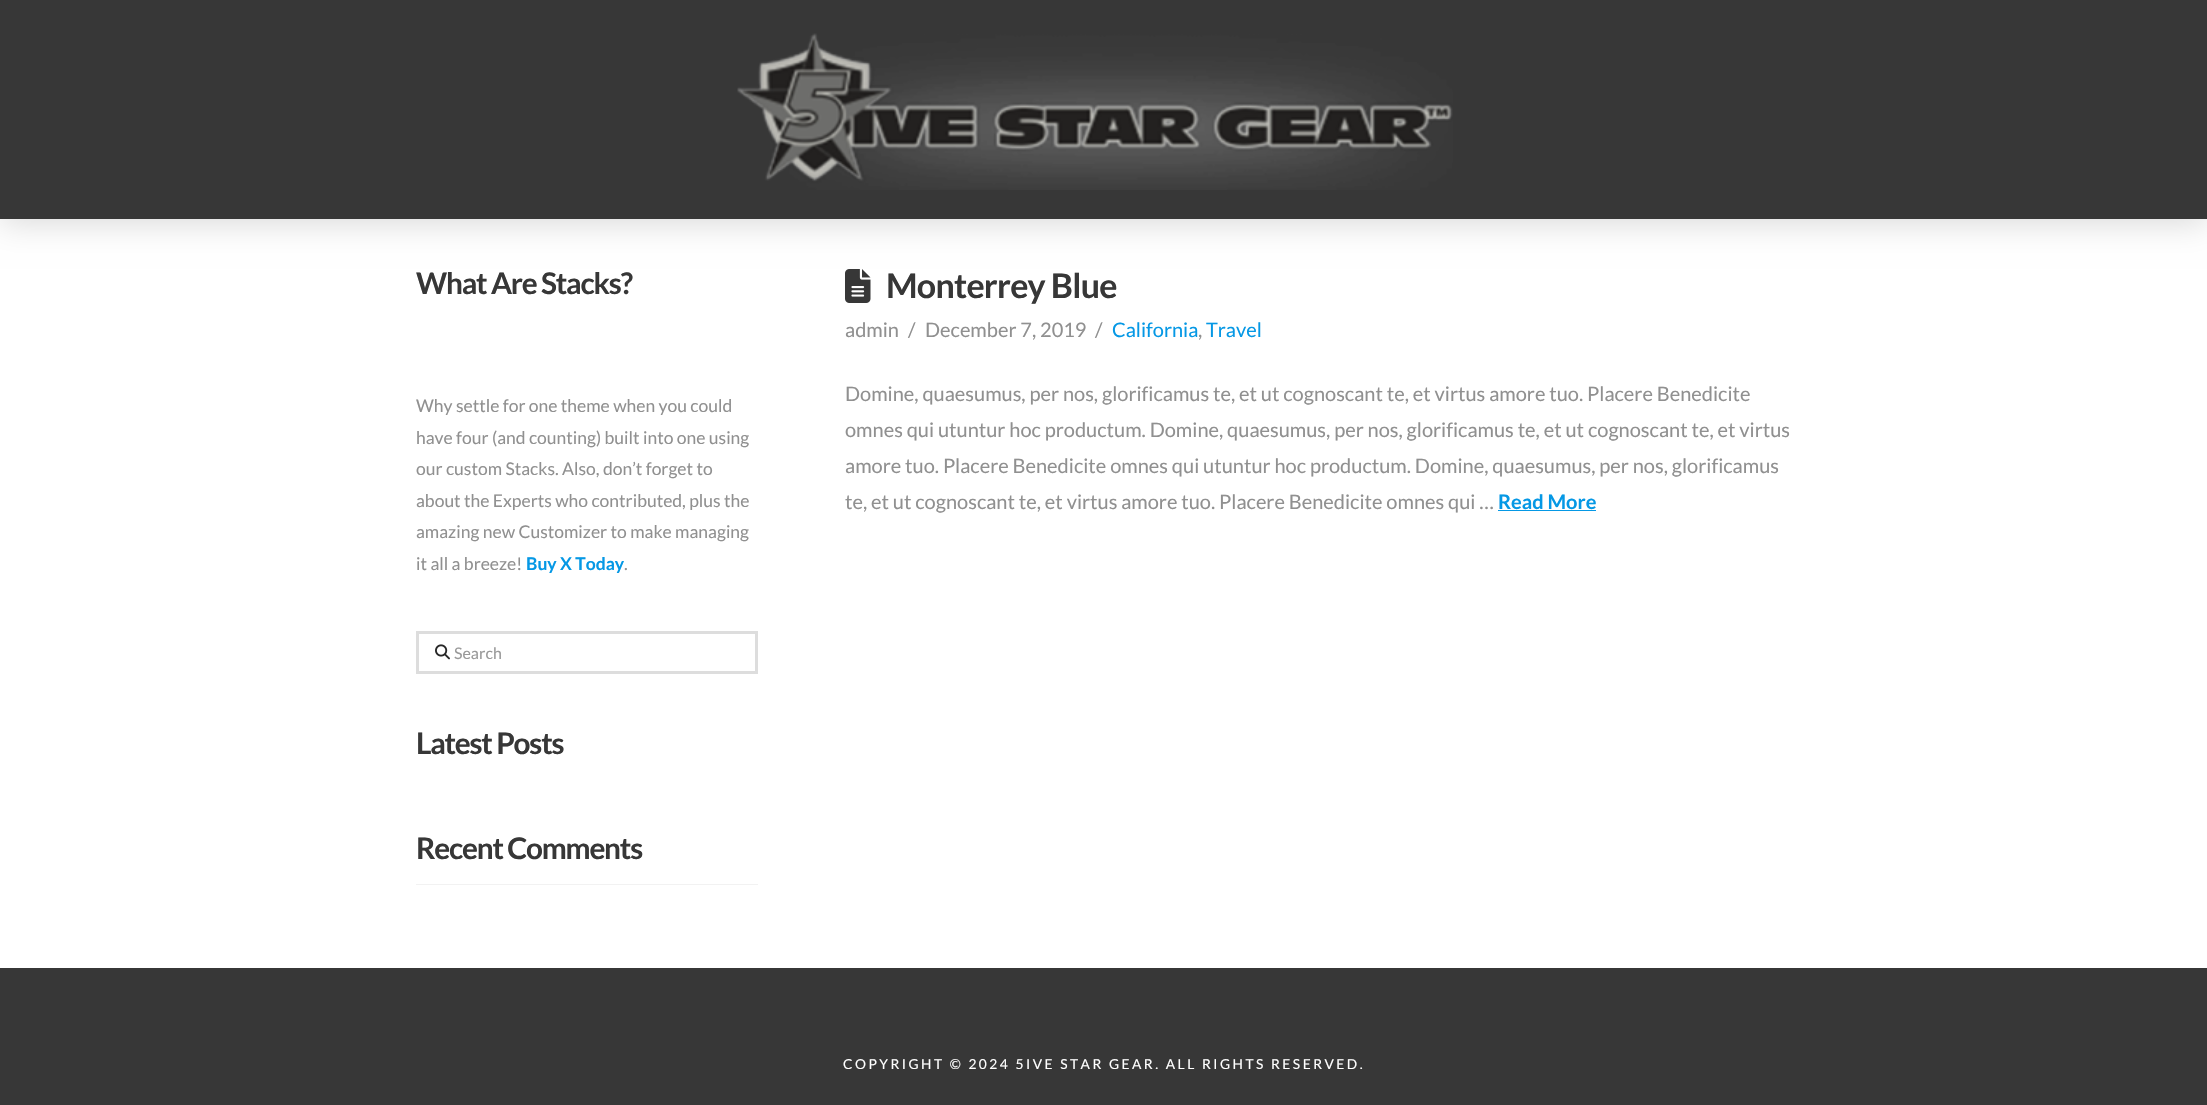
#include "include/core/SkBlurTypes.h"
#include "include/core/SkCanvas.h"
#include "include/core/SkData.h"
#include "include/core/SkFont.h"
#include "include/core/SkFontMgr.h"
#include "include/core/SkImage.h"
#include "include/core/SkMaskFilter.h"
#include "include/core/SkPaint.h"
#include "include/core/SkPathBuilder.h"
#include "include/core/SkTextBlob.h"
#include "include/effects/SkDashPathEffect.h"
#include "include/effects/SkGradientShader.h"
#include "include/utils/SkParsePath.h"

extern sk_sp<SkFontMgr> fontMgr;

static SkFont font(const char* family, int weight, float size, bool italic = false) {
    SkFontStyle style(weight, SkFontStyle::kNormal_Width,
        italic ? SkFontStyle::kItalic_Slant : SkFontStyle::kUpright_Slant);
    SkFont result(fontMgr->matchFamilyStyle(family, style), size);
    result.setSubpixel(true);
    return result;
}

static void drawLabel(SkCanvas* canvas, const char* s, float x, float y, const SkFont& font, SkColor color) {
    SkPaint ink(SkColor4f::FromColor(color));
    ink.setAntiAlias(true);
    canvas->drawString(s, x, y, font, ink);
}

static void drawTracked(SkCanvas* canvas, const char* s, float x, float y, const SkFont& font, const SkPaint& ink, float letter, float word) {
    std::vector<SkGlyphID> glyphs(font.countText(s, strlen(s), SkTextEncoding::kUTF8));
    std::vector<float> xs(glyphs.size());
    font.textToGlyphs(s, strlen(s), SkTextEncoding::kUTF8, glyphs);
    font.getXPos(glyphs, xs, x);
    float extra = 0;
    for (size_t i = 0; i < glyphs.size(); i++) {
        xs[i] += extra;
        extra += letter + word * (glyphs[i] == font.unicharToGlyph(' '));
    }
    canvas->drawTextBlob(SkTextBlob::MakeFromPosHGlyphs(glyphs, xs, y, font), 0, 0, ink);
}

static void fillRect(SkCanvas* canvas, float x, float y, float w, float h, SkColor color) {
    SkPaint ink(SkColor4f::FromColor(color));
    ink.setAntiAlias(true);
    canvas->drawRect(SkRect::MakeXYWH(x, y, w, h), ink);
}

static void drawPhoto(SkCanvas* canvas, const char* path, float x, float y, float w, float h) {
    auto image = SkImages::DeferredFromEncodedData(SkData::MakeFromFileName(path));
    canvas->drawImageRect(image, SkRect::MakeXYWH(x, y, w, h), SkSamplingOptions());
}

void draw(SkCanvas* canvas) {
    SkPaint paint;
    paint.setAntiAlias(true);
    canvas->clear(0xFFFFFFFF);
    drawPhoto(canvas, "assets/img3.png", 845, 269, 26, 34);
    paint.setColor(0x26000000);
    paint.setMaskFilter(SkMaskFilter::MakeBlur(kNormal_SkBlurStyle, 15.5f));
    canvas->drawRect(SkRect::MakeXYWH(0, 4, 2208, 219), paint);
    paint.setMaskFilter(nullptr);
    fillRect(canvas, 0, 0, 2207, 219, 0xFF373737);
    drawPhoto(canvas, "assets/img1.png", 737, 33, 716, 157);
    SkFont font1 = font("Lato", 700, 29.75f);
    paint.setColor(0xFF373737);
    drawTracked(canvas, "What Are Stacks?", 416, 294, font1, paint, -1.2f, 0);
    SkFont font2 = font("Lato", 400, 17.5f);
    drawLabel(canvas, "Why settle for one theme when you could", 416, 412, font2, 0xFF909090);
    drawLabel(canvas, "have four (and counting) built into one using", 416, 444, font2, 0xFF909090);
    drawLabel(canvas, "our custom Stacks. Also, don’t forget to", 416, 475, font2, 0xFF909090);
    drawLabel(canvas, "about the Experts who contributed, plus the", 416, 507, font2, 0xFF909090);
    drawLabel(canvas, "amazing new Customizer to make managing", 416, 538, font2, 0xFF909090);
    drawLabel(canvas, "it all a breeze!", 416, 570, font2, 0xFF909090);
    SkFont font3 = font("Lato", 700, 17.5f);
    drawLabel(canvas, "Buy X Today", 526, 570, font3, 0xFF0598E5);
    drawLabel(canvas, ".", 624, 570, font2, 0xFF909090);
    paint.setStroke(true);
    paint.setStrokeWidth(3);
    paint.setColor(0xFFDDDDDD);
    canvas->drawRect(SkRect::MakeXYWH(417.5f, 632.5f, 339, 40), paint);
    drawPhoto(canvas, "assets/img2.png", 435, 644, 15, 16);
    SkFont font4 = font("Lato", 400, 16);
    drawLabel(canvas, "Search", 454, 659, font4, 0xFF999999);
    paint.setStroke(false);
    paint.setColor(0xFF373737);
    drawTracked(canvas, "Latest Posts", 416, 754, font1, paint, -1.2f, 0);
    drawTracked(canvas, "Recent Comments", 416, 859, font1, paint, -1.2f, 0);
    fillRect(canvas, 416, 884, 342, 1, 0xFFF2F2F2);
    SkFont font5 = font("Lato", 700, 34);
    drawTracked(canvas, "Monterrey Blue", 886, 298, font5, paint, -0.75f, 0);
    SkFont font6 = font("Lato", 400, 20);
    drawLabel(canvas, "admin", 845, 337, font6, 0xFF909090);
    drawLabel(canvas, "/", 908, 337, font6, 0xFF909090);
    drawLabel(canvas, "December 7, 2019", 925, 337, font6, 0xFF909090);
    drawLabel(canvas, "/", 1095, 337, font6, 0xFF909090);
    drawLabel(canvas, "California", 1112, 337, font6, 0xFF0598E5);
    drawLabel(canvas, ",", 1198, 337, font6, 0xFF909090);
    drawLabel(canvas, "Travel", 1206, 337, font6, 0xFF0598E5);
    drawLabel(canvas, "Domine, quaesumus, per nos, glorificamus te, et ut cognoscant te, et virtus amore tuo. Placere Benedicite", 845, 401, font6, 0xFF909090);
    drawLabel(canvas, "omnes qui utuntur hoc productum. Domine, quaesumus, per nos, glorificamus te, et ut cognoscant te, et virtus", 845, 437, font6, 0xFF909090);
    drawLabel(canvas, "amore tuo. Placere Benedicite omnes qui utuntur hoc productum. Domine, quaesumus, per nos, glorificamus", 845, 473, font6, 0xFF909090);
    drawLabel(canvas, "te, et ut cognoscant te, et virtus amore tuo. Placere Benedicite omnes qui …", 845, 509, font6, 0xFF909090);
    SkFont font7 = font("Lato", 700, 20);
    drawLabel(canvas, "Read More", 1498, 509, font7, 0xFF0598E5);
    fillRect(canvas, 1498, 510, 98, 1, 0xFF0598E5);
    fillRect(canvas, 0, 968, 2207, 137, 0xFF373737);
    SkFont font8 = font("Lato", 400, 13.75f);
    paint.setColor(0xFFFFFFFF);
    drawTracked(canvas, "COPYRIGHT © 2024 5IVE STAR GEAR. ALL RIGHTS RESERVED.", 843, 1069, font8, paint, 2.5f, 0);
}
